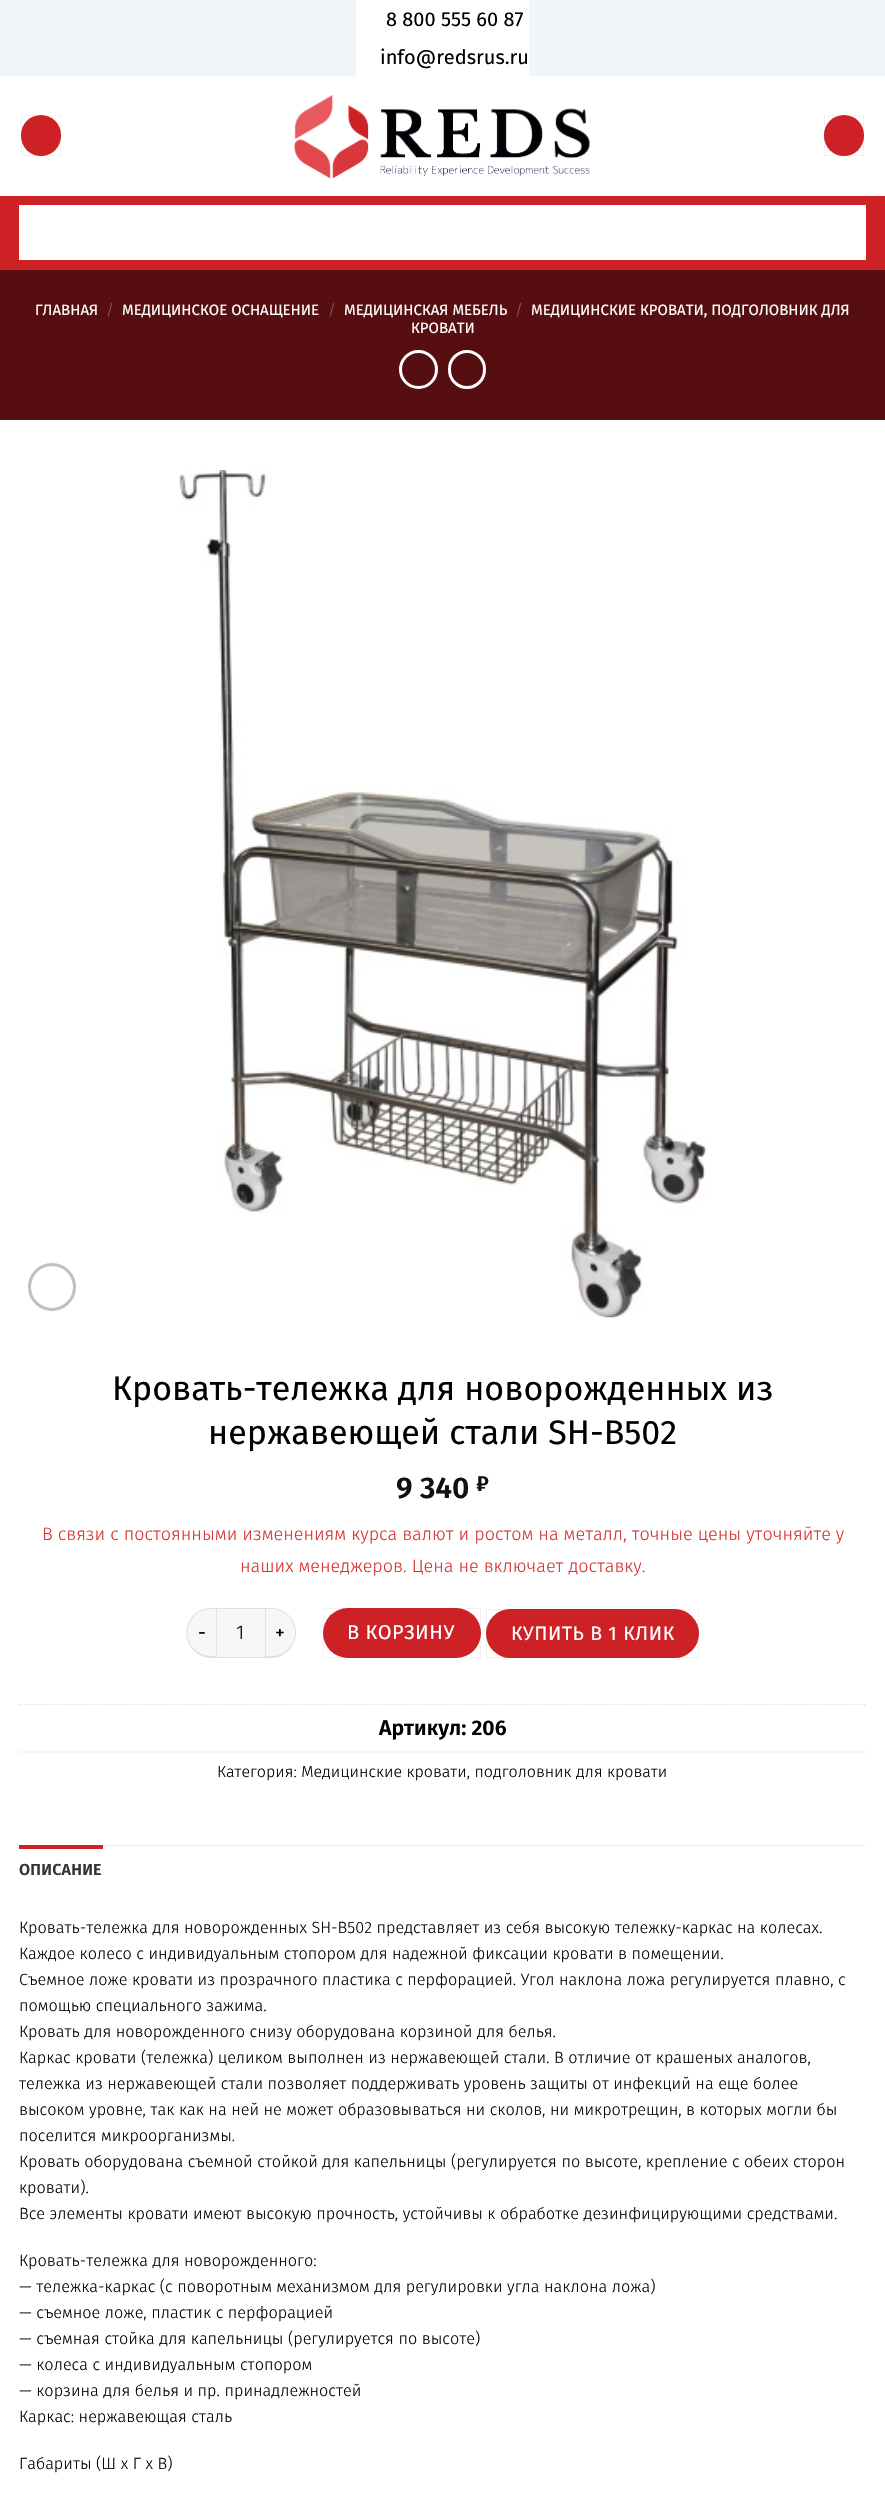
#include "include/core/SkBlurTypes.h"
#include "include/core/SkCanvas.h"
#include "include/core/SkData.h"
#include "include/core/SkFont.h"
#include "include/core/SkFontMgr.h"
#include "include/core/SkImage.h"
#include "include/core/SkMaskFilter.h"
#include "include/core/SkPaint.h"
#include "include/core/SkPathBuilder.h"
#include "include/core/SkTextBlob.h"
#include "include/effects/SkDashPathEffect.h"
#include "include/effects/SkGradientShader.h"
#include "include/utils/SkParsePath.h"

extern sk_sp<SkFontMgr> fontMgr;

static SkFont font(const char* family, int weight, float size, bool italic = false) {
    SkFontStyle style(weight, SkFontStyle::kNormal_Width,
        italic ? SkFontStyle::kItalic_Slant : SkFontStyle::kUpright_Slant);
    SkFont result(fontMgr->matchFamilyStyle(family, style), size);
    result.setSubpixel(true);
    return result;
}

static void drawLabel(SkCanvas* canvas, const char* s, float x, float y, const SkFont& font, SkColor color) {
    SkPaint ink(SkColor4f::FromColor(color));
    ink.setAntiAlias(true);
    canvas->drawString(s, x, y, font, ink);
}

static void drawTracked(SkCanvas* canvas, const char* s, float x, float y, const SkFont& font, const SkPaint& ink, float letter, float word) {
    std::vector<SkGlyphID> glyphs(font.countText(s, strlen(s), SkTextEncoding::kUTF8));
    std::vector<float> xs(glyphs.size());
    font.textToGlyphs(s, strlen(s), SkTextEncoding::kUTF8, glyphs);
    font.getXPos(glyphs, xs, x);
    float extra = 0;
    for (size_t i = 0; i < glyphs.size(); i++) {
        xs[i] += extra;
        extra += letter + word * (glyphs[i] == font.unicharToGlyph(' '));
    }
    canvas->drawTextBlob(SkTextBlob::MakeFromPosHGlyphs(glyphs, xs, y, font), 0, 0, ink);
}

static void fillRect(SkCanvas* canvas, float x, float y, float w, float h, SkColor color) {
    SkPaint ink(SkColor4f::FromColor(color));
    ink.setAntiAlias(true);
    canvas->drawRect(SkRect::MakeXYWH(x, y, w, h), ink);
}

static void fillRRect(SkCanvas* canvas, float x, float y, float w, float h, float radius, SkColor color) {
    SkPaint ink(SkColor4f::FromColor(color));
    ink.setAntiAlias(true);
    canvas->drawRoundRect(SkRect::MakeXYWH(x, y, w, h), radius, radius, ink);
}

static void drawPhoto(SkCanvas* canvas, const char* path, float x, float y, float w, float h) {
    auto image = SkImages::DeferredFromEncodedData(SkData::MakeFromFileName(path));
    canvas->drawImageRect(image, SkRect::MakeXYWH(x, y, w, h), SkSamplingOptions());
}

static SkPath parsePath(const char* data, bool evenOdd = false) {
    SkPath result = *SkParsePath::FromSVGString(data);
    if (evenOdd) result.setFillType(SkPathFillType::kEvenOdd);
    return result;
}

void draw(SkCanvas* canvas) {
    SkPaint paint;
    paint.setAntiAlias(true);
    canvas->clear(0xFFFFFFFF);
    fillRect(canvas, 0, 0, 885, 76, 0xFFF1F5F8);
    fillRect(canvas, 356, 0, 173, 76, 0xFFFFFFFF);
    SkFont font1 = font("Fira Sans", 400, 20);
    drawLabel(canvas, "8 800 555 60 87", 386, 26, font1, 0xFF000000);
    drawLabel(canvas, "info@redsrus.ru", 380, 64, font1, 0xFF000000);
    fillRRect(canvas, 21, 115, 40, 41, 20, 0xFFCE2125);
    paint.setStroke(true);
    paint.setStrokeWidth(1);
    paint.setColor(0x0D000000);
    canvas->drawRect(SkRect::MakeXYWH(21.5f, 115.5f, 39, 40), paint);
    drawPhoto(canvas, "assets/img1.png", 294, 94, 296, 85);
    fillRRect(canvas, 824, 115, 40, 41, 20, 0xFFCE2125);
    canvas->drawRect(SkRect::MakeXYWH(824.5f, 115.5f, 39, 40), paint);
    fillRect(canvas, 0, 196, 885, 74, 0xFFCE2125);
    fillRect(canvas, 19, 205, 847, 55, 0xFFFFFFFF);
    fillRect(canvas, 0, 270, 885, 150, 0xFF570E10);
    SkFont font2 = font("Fira Sans", 400, 15);
    drawLabel(canvas, "ГЛАВНАЯ", 35, 315, font2, 0xFFFFFFFF);
    SkFont font3 = font("Fira Sans", 300, 15);
    drawLabel(canvas, "/", 106, 315, font3, 0xFF926264);
    drawLabel(canvas, "МЕДИЦИНСКОЕ ОСНАЩЕНИЕ", 122, 315, font2, 0xFFFFFFFF);
    drawLabel(canvas, "/", 328, 315, font3, 0xFF926264);
    drawLabel(canvas, "МЕДИЦИНСКАЯ МЕБЕЛЬ", 344, 315, font2, 0xFFFFFFFF);
    drawLabel(canvas, "/", 515, 315, font3, 0xFF926264);
    drawLabel(canvas, "МЕДИЦИНСКИЕ КРОВАТИ, ПОДГОЛОВНИК ДЛЯ", 531, 315, font2, 0xFFFFFFFF);
    drawLabel(canvas, "КРОВАТИ", 411, 333, font2, 0xFFFFFFFF);
    paint.setStrokeWidth(3);
    paint.setColor(0xFFFFFFFF);
    canvas->drawCircle(418.5f, 369.5f, 18, paint);
    canvas->drawRoundRect(SkRect::MakeXYWH(449.5f, 351.5f, 35, 36), 17.5f, 17.5f, paint);
    paint.setColor(0xFFC0C0C0);
    canvas->drawCircle(52, 1287, 22.5f, paint);
    drawPhoto(canvas, "assets/img2.png", 179, 470, 529, 848);
    SkFont font4 = font("Fira Sans", 400, 34);
    drawLabel(canvas, "Кровать-тележка для новорожденных из", 112, 1400, font4, 0xFF000000);
    drawLabel(canvas, "нержавеющей стали SH-B502", 208, 1444, font4, 0xFF000000);
    SkFont font5 = font("Fira Sans", 600, 30);
    drawLabel(canvas, "9 340", 396, 1498, font5, 0xFF111111);
    SkFont font6 = font("Fira Sans", 600, 22);
    drawLabel(canvas, "₽", 476, 1491, font6, 0xFF111111);
    SkFont font7 = font("Fira Sans", 300, 18);
    drawLabel(canvas, "В связи с постоянными изменениям курса валют и ростом на металл, точные цены уточняйте у", 42, 1540, font7, 0xFFD83131);
    drawLabel(canvas, "наших менеджеров. Цена не включает доставку.", 240, 1572, font7, 0xFFD83131);
    paint.setStroke(false);
    paint.setColor(0xFFF7F7F7);
    canvas->drawPath(parsePath("M211 1608H216V1658H211C197 1658 186 1647 186 1633C186 1619 197 1608 211 1608Z"), paint);
    paint.setColor(0x17000000);
    canvas->drawPath(parsePath("M211 1608H216V1658C211 1658 206 1658 202 1656C177 1645 184 1608 211 1608ZM211 1609H216V1656C211 1656 207 1656 202 1654C178 1644 186 1609 211 1609Z", true), paint);
    SkFont font8 = font("Fira Sans", 400, 19.5f);
    paint.setColor(0xFF000000);
    drawTracked(canvas, "-", 198, 1639, font8, paint, 0.6f, 0);
    paint.setColor(0xFFF7F7F7);
    canvas->drawRect(SkRect::MakeXYWH(216.5f, 1608.5f, 49, 49), paint);
    paint.setStroke(true);
    paint.setStrokeWidth(1);
    paint.setColor(0xFFE1E1E1);
    canvas->drawRect(SkRect::MakeXYWH(216.5f, 1608.5f, 49, 49), paint);
    SkFont font9 = font("Fira Sans", 300, 20);
    drawLabel(canvas, "1", 236, 1639, font9, 0xFF000000);
    paint.setStroke(false);
    paint.setColor(0xFFF7F7F7);
    canvas->drawPath(parsePath("M266 1608H271C285 1608 296 1619 296 1633C296 1647 285 1658 271 1658H266Z"), paint);
    paint.setColor(0x17000000);
    canvas->drawPath(parsePath("M266 1608H271C285 1608 296 1619 296 1632C296 1646 285 1658 271 1658H266ZM266 1609H271C284 1609 295 1619 295 1632C295 1646 284 1656 271 1656H266Z", true), paint);
    paint.setColor(0xFF000000);
    drawTracked(canvas, "+", 275, 1639, font8, paint, 0.6f, 0);
    fillRRect(canvas, 323, 1608, 158, 50, 25, 0xFFCE2125);
    paint.setStroke(true);
    paint.setColor(0x0D000000);
    canvas->drawRect(SkRect::MakeXYWH(323.5f, 1608.5f, 157, 49), paint);
    paint.setStroke(false);
    paint.setColor(0xFFFFFFFF);
    drawTracked(canvas, "В КОРЗИНУ", 347, 1639, font1, paint, 0.5f, 0);
    fillRRect(canvas, 486, 1609, 213, 49, 24.5f, 0xFFCE2125);
    paint.setStroke(true);
    paint.setColor(0x0D000000);
    canvas->drawRect(SkRect::MakeXYWH(486.5f, 1609.5f, 212, 48), paint);
    paint.setStroke(false);
    paint.setColor(0xFFFFFFFF);
    drawTracked(canvas, "КУПИТЬ В 1 КЛИК", 511, 1640, font8, paint, 0.6f, 0);
    paint.setStroke(true);
    paint.setStrokeWidth(1.2f);
    paint.setColor(0xFFDDDDDD);
    paint.setPathEffect(SkDashPathEffect::Make({{1.25f, 1.25f}}, 0));
    canvas->drawPath(parsePath("M19 1704.5H866"), paint);
    paint.setPathEffect(nullptr);
    SkFont font10 = font("Fira Sans", 600, 21.25f);
    drawLabel(canvas, "Артикул: 206", 379, 1735, font10, 0xFF000000);
    paint.setPathEffect(SkDashPathEffect::Make({{1.25f, 1.25f}}, 0));
    canvas->drawPath(parsePath("M19 1752H866"), paint);
    paint.setPathEffect(nullptr);
    SkFont font11 = font("Fira Sans", 300, 16);
    drawLabel(canvas, "Категория: Медицинские кровати, подголовник для кровати", 217, 1777, font11, 0xFF000000);
    fillRect(canvas, 103, 1845, 763, 1, 0xFFECECEC);
    fillRect(canvas, 19, 1845, 84, 4, 0xFFCE2125);
    SkFont font12 = font("Fira Sans", 600, 16);
    paint.setStroke(false);
    paint.setColor(0xFF353535);
    drawTracked(canvas, "ОПИСАНИЕ", 19, 1875, font12, paint, 0.25f, 0);
    SkFont font13 = font("Fira Sans", 300, 16.25f);
    drawLabel(canvas, "Кровать-тележка для новорожденных SH-B502 представляет из себя высокую тележку-каркас на колесах.", 19, 1933, font13, 0xFF000000);
    drawLabel(canvas, "Каждое колесо с индивидуальным стопором для надежной фиксации кровати в помещении.", 19, 1959, font13, 0xFF000000);
    drawLabel(canvas, "Съемное ложе кровати из прозрачного пластика с перфорацией. Угол наклона ложа регулируется плавно, с", 19, 1985, font13, 0xFF000000);
    drawLabel(canvas, "помощью специального зажима.", 19, 2011, font13, 0xFF000000);
    drawLabel(canvas, "Кровать для новорожденного снизу оборудована корзиной для белья.", 19, 2037, font13, 0xFF000000);
    drawLabel(canvas, "Каркас кровати (тележка) целиком выполнен из нержавеющей стали. В отличие от крашеных аналогов,", 19, 2063, font13, 0xFF000000);
    drawLabel(canvas, "тележка из нержавеющей стали позволяет поддерживать уровень защиты от инфекций на еще более", 19, 2089, font13, 0xFF000000);
    drawLabel(canvas, "высоком уровне, так как на ней не может образовываться ни сколов, ни микротрещин, в которых могли бы", 19, 2115, font13, 0xFF000000);
    drawLabel(canvas, "поселится микроорганизмы.", 19, 2141, font13, 0xFF000000);
    drawLabel(canvas, "Кровать оборудована съемной стойкой для капельницы (регулируется по высоте, крепление с обеих сторон", 19, 2167, font13, 0xFF000000);
    drawLabel(canvas, "кровати).", 19, 2193, font13, 0xFF000000);
    drawLabel(canvas, "Все элементы кровати имеют высокую прочность, устойчивы к обработке дезинфицирующими средствами.", 19, 2219, font13, 0xFF000000);
    drawLabel(canvas, "Кровать-тележка для новорожденного:", 19, 2266, font13, 0xFF000000);
    drawLabel(canvas, "— тележка-каркас (с поворотным механизмом для регулировки угла наклона ложа)", 19, 2292, font13, 0xFF000000);
    drawLabel(canvas, "— съемное ложе, пластик с перфорацией", 19, 2318, font13, 0xFF000000);
    drawLabel(canvas, "— съемная стойка для капельницы (регулируется по высоте)", 19, 2344, font13, 0xFF000000);
    drawLabel(canvas, "— колеса с индивидуальным стопором", 19, 2370, font13, 0xFF000000);
    drawLabel(canvas, "— корзина для белья и пр. принадлежностей", 19, 2396, font13, 0xFF000000);
    drawLabel(canvas, "Каркас: нержавеющая сталь", 19, 2422, font13, 0xFF000000);
    drawLabel(canvas, "Габариты (Ш х Г х В)", 19, 2469, font13, 0xFF000000);
}
